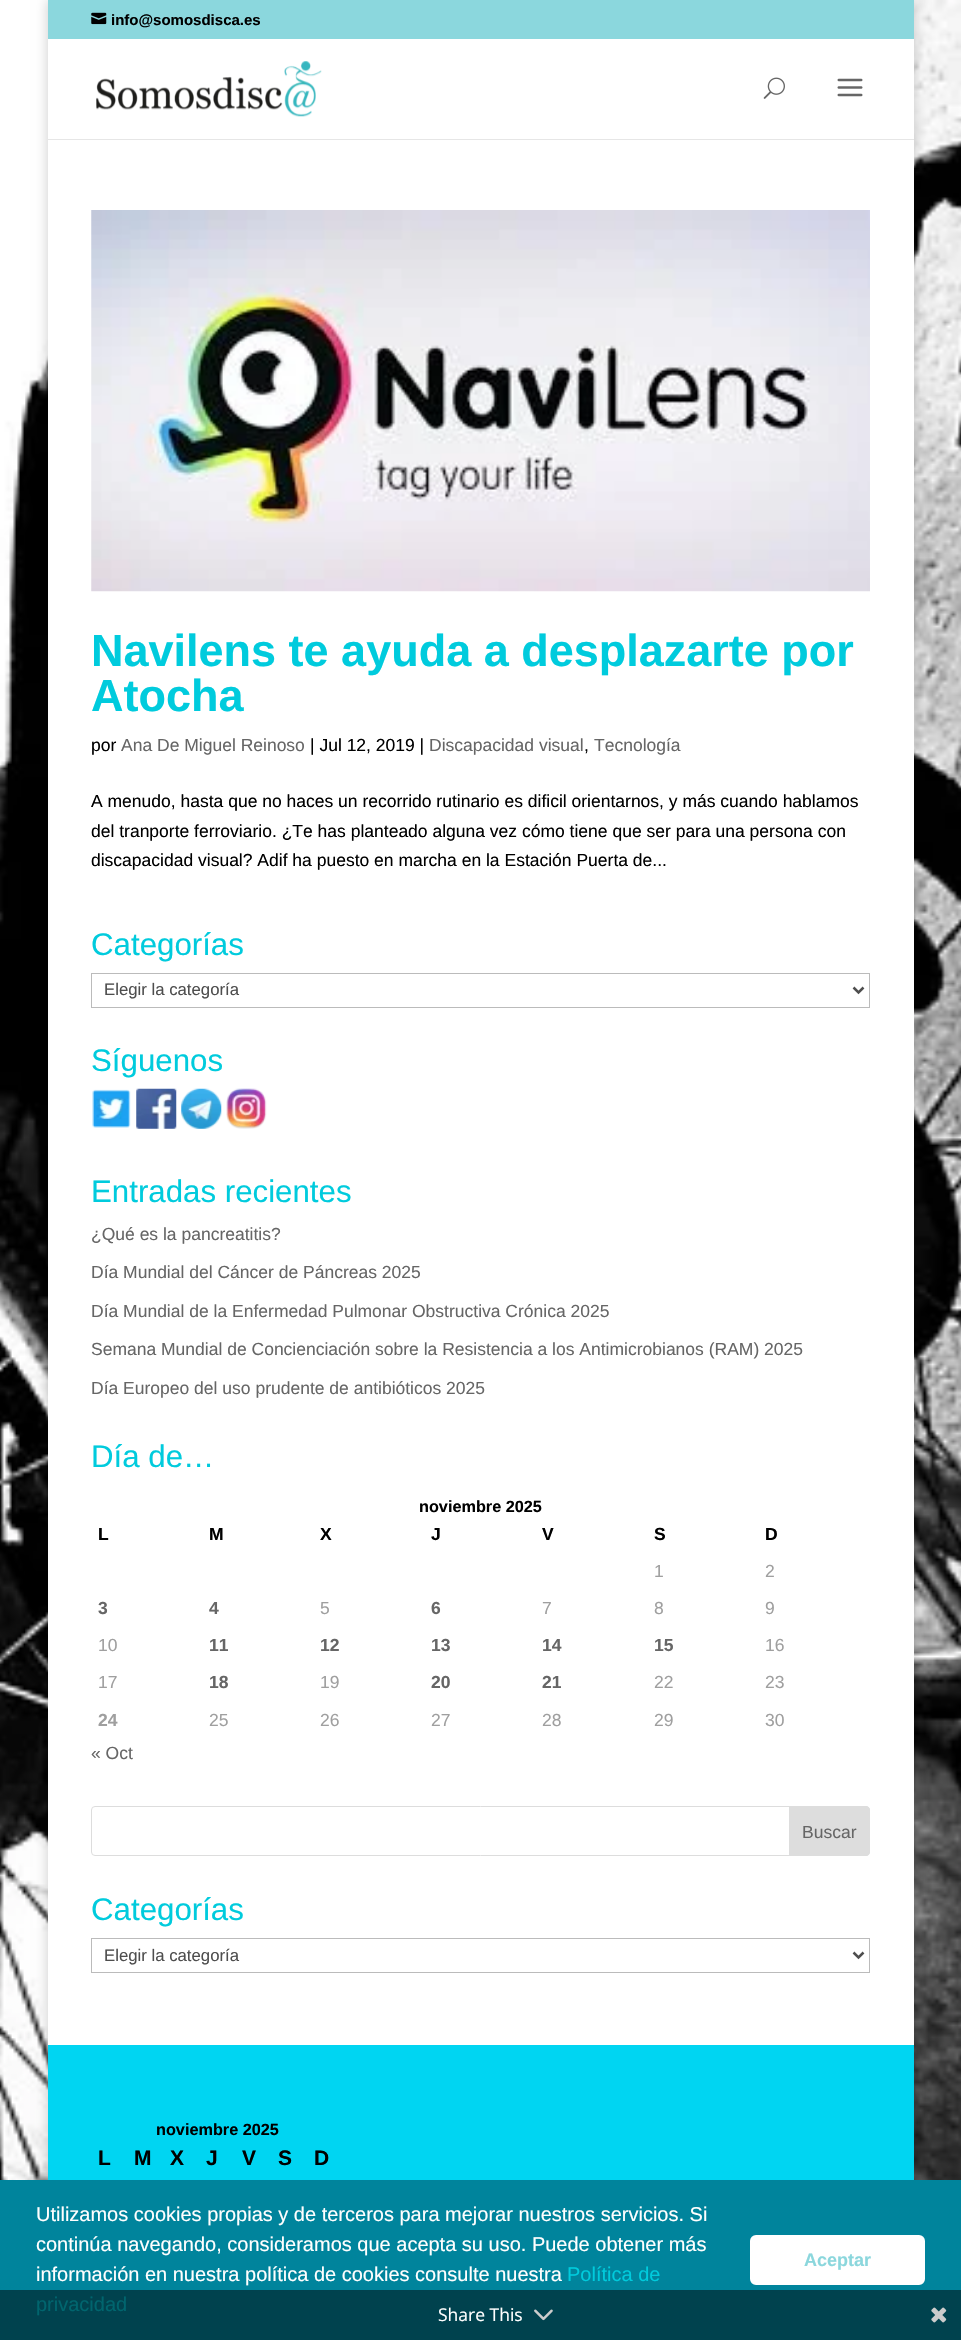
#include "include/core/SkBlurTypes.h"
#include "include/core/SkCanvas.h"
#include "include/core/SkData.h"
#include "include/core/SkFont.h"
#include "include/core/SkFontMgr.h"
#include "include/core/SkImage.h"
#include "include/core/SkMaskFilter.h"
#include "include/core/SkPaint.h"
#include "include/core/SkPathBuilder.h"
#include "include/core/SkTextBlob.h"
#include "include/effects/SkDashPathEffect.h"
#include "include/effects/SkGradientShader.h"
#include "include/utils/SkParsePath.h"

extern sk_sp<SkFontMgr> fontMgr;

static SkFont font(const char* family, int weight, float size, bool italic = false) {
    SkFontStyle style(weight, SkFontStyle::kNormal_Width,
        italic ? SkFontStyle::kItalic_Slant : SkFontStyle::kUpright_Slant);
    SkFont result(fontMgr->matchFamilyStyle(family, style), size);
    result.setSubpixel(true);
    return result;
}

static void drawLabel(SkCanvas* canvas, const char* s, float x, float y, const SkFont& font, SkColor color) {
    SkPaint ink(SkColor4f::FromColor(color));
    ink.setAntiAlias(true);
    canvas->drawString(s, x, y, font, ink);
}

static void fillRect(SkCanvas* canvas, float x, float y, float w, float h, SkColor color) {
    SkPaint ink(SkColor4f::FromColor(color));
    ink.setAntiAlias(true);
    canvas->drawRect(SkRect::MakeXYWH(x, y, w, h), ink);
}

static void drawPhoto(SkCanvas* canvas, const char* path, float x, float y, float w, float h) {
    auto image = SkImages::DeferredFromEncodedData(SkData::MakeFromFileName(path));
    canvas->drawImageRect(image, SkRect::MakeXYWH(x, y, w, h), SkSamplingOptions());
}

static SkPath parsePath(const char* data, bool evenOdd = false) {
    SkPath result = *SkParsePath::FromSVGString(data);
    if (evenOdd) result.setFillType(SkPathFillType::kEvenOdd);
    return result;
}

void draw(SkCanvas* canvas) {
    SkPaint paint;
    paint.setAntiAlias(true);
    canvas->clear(0xFFFFFFFF);
    drawPhoto(canvas, "assets/img1.png", 0, 0, 961, 2180);
    paint.setColor(0x33000000);
    paint.setMaskFilter(SkMaskFilter::MakeBlur(kNormal_SkBlurStyle, 6));
    canvas->drawRect(SkRect::MakeXYWH(48, 0, 866, 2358), paint);
    paint.setMaskFilter(nullptr);
    fillRect(canvas, 48, 0, 866, 39, 0xFF8BD7DD);
    drawPhoto(canvas, "assets/img2.png", 91, 12, 16, 13);
    SkFont font1 = font("Liberation Sans", 700, 15);
    drawLabel(canvas, "info@somosdisca.es", 111, 25, font1, 0xFF000000);
    paint.setColor(0xFFE6E6E6);
    canvas->drawPath(parsePath("M48 139V140H914V40V139Z"), paint);
    fillRect(canvas, 48, 39, 866, 100, 0xFFFFFFFF);
    drawPhoto(canvas, "assets/img3.png", 96, 61, 226, 56);
    drawPhoto(canvas, "assets/img4.png", 763, 77, 22, 22);
    drawPhoto(canvas, "assets/img5.png", 837, 78, 26, 19);
    fillRect(canvas, 48, 140, 866, 1905, 0xFFFFFFFF);
    drawPhoto(canvas, "assets/img6.png", 91, 210, 779, 382);
    SkFont font2 = font("Liberation Sans", 700, 45);
    drawLabel(canvas, "Navilens te ayuda a desplazarte por", 91, 666, font2, 0xFF00CBDD);
    drawLabel(canvas, "Atocha", 91, 711, font2, 0xFF00CBDD);
    SkFont font3 = font("Liberation Sans", 400, 17.5f);
    drawLabel(canvas, "por", 91, 751, font3, 0xFF000000);
    drawLabel(canvas, "Ana De Miguel Reinoso", 121, 751, font3, 0xFF666666);
    drawLabel(canvas, "| Jul 12, 2019 |", 310, 751, font3, 0xFF000000);
    drawLabel(canvas, "Discapacidad visual", 429, 751, font3, 0xFF666666);
    drawLabel(canvas, ",", 584, 751, font3, 0xFF000000);
    drawLabel(canvas, "Tecnología", 594, 751, font3, 0xFF666666);
    drawLabel(canvas, "A menudo, hasta que no haces un recorrido rutinario es dificil orientarnos, y más cuando hablamos", 91, 807, font3, 0xFF000000);
    drawLabel(canvas, "del tranporte ferroviario. ¿Te has planteado alguna vez cómo tiene que ser para una persona con", 91, 837, font3, 0xFF000000);
    drawLabel(canvas, "discapacidad visual? Adif ha puesto en marcha en la Estación Puerta de...", 91, 866, font3, 0xFF000000);
    SkFont font4 = font("Liberation Sans", 400, 31.25f);
    drawLabel(canvas, "Categorías", 91, 955, font4, 0xFF00CBDD);
    paint.setStroke(true);
    paint.setStrokeWidth(1);
    paint.setColor(0xFFBBBBBB);
    canvas->drawRect(SkRect::MakeXYWH(91.5f, 973.5f, 778, 34), paint);
    paint.setStrokeWidth(2.5f);
    paint.setColor(0xFF4E4E4E);
    canvas->drawPath(parsePath("M853.5 987.5L858.5 992.5L863.5 987.5"), paint);
    SkFont font5 = font("Liberation Sans", 400, 16.75f);
    drawLabel(canvas, "Elegir la categoría", 104, 995, font5, 0xFF4E4E4E);
    drawLabel(canvas, "Síguenos", 91, 1071, font4, 0xFF00CBDD);
    drawPhoto(canvas, "assets/img7.png", 92, 1089, 39, 39);
    drawPhoto(canvas, "assets/img8.png", 136, 1088, 41, 41);
    drawPhoto(canvas, "assets/img9.png", 181, 1088, 41, 41);
    drawPhoto(canvas, "assets/img10.png", 226, 1088, 41, 41);
    drawLabel(canvas, "Entradas recientes", 91, 1202, font4, 0xFF00CBDD);
    drawLabel(canvas, "¿Qué es la pancreatitis?", 91, 1240, font3, 0xFF666666);
    drawLabel(canvas, "Día Mundial del Cáncer de Páncreas 2025", 91, 1278, font3, 0xFF666666);
    drawLabel(canvas, "Día Mundial de la Enfermedad Pulmonar Obstructiva Crónica 2025", 91, 1317, font3, 0xFF666666);
    drawLabel(canvas, "Semana Mundial de Concienciación sobre la Resistencia a los Antimicrobianos (RAM) 2025", 91, 1355, font3, 0xFF666666);
    drawLabel(canvas, "Día Europeo del uso prudente de antibióticos 2025", 91, 1394, font3, 0xFF666666);
    drawLabel(canvas, "Día de…", 91, 1467, font4, 0xFF00CBDD);
    SkFont font6 = font("Liberation Sans", 700, 16.25f);
    drawLabel(canvas, "noviembre 2025", 419, 1512, font6, 0xFF000000);
    SkFont font7 = font("Liberation Sans", 700, 17.5f);
    drawLabel(canvas, "L", 98, 1540, font7, 0xFF000000);
    drawLabel(canvas, "M", 209, 1540, font7, 0xFF000000);
    drawLabel(canvas, "X", 320, 1540, font7, 0xFF000000);
    drawLabel(canvas, "J", 431, 1540, font7, 0xFF000000);
    drawLabel(canvas, "V", 542, 1540, font7, 0xFF000000);
    drawLabel(canvas, "S", 654, 1540, font7, 0xFF000000);
    drawLabel(canvas, "D", 765, 1540, font7, 0xFF000000);
    drawLabel(canvas, "1", 654, 1577, font3, 0xFF9F9F9F);
    drawLabel(canvas, "2", 765, 1577, font3, 0xFF9F9F9F);
    drawLabel(canvas, "3", 98, 1614, font7, 0xFF666666);
    drawLabel(canvas, "4", 209, 1614, font7, 0xFF666666);
    drawLabel(canvas, "5", 320, 1614, font3, 0xFF9F9F9F);
    drawLabel(canvas, "6", 431, 1614, font7, 0xFF666666);
    drawLabel(canvas, "7", 542, 1614, font3, 0xFF9F9F9F);
    drawLabel(canvas, "8", 654, 1614, font3, 0xFF9F9F9F);
    drawLabel(canvas, "9", 765, 1614, font3, 0xFF9F9F9F);
    drawLabel(canvas, "10", 98, 1651, font3, 0xFF9F9F9F);
    drawLabel(canvas, "11", 209, 1651, font7, 0xFF666666);
    drawLabel(canvas, "12", 320, 1651, font7, 0xFF666666);
    drawLabel(canvas, "13", 431, 1651, font7, 0xFF666666);
    drawLabel(canvas, "14", 542, 1651, font7, 0xFF666666);
    drawLabel(canvas, "15", 654, 1651, font7, 0xFF666666);
    drawLabel(canvas, "16", 765, 1651, font3, 0xFF9F9F9F);
    drawLabel(canvas, "17", 98, 1688, font3, 0xFF9F9F9F);
    drawLabel(canvas, "18", 209, 1688, font7, 0xFF666666);
    drawLabel(canvas, "19", 320, 1688, font3, 0xFF9F9F9F);
    drawLabel(canvas, "20", 431, 1688, font7, 0xFF666666);
    drawLabel(canvas, "21", 542, 1688, font7, 0xFF666666);
    drawLabel(canvas, "22", 654, 1688, font3, 0xFF9F9F9F);
    drawLabel(canvas, "23", 765, 1688, font3, 0xFF9F9F9F);
    drawLabel(canvas, "24", 98, 1726, font7, 0xFF9F9F9F);
    drawLabel(canvas, "25", 209, 1726, font3, 0xFF9F9F9F);
    drawLabel(canvas, "26", 320, 1726, font3, 0xFF9F9F9F);
    drawLabel(canvas, "27", 431, 1726, font3, 0xFF9F9F9F);
    drawLabel(canvas, "28", 542, 1726, font3, 0xFF9F9F9F);
    drawLabel(canvas, "29", 654, 1726, font3, 0xFF9F9F9F);
    drawLabel(canvas, "30", 765, 1726, font3, 0xFF9F9F9F);
    drawLabel(canvas, "« Oct", 91, 1759, font3, 0xFF666666);
    paint.setStrokeWidth(1);
    paint.setColor(0xFFDDDDDD);
    canvas->drawRoundRect(SkRect::MakeXYWH(91.5f, 1806.5f, 778, 49), 3.5f, 3.5f, paint);
    paint.setStroke(false);
    canvas->drawPath(parsePath("M789.5 1806.5H866C868 1806.5 869.5 1808 869.5 1810V1852C869.5 1854 868 1855.5 866 1855.5H789.5Z"), paint);
    paint.setStroke(true);
    canvas->drawPath(parsePath("M789.5 1806.5H866C868 1806.5 869.5 1808 869.5 1810V1852C869.5 1854 868 1855.5 866 1855.5H789.5Z"), paint);
    drawLabel(canvas, "Buscar", 802, 1838, font3, 0xFF666666);
    drawLabel(canvas, "Categorías", 91, 1920, font4, 0xFF00CBDD);
    paint.setColor(0xFFBBBBBB);
    canvas->drawRect(SkRect::MakeXYWH(91.5f, 1938.5f, 778, 34), paint);
    paint.setStrokeWidth(2.5f);
    paint.setColor(0xFF4E4E4E);
    canvas->drawPath(parsePath("M853.5 1952.5L858.5 1957.5L863.5 1952.5"), paint);
    drawLabel(canvas, "Elegir la categoría", 104, 1961, font5, 0xFF4E4E4E);
    fillRect(canvas, 48, 2045, 866, 135, 0xFF00D5F2);
    drawLabel(canvas, "noviembre 2025", 156, 2135, font6, 0xFF000000);
    SkFont font8 = font("Liberation Sans", 700, 21);
    drawLabel(canvas, "L", 98, 2165, font8, 0xFF000000);
    drawLabel(canvas, "M", 134, 2165, font8, 0xFF000000);
    drawLabel(canvas, "X", 170, 2165, font8, 0xFF000000);
    drawLabel(canvas, "J", 206, 2165, font8, 0xFF000000);
    drawLabel(canvas, "V", 242, 2165, font8, 0xFF000000);
    drawLabel(canvas, "S", 278, 2165, font8, 0xFF000000);
    drawLabel(canvas, "D", 314, 2165, font8, 0xFF000000);
    fillRect(canvas, 0, 2180, 961, 160, 0xFF00849C);
    SkFont font9 = font("Liberation Sans", 400, 20);
    drawLabel(canvas, "Utilizamos cookies propias y de terceros para mejorar nuestros servicios. Si", 36, 2221, font9, 0xFFFFFFFF);
    drawLabel(canvas, "continúa navegando, consideramos que acepta su uso. Puede obtener más", 36, 2251, font9, 0xFFFFFFFF);
    drawLabel(canvas, "información en nuestra política de cookies consulte nuestra", 36, 2281, font9, 0xFFFFFFFF);
    drawLabel(canvas, "Política de", 567, 2281, font9, 0xFF00CBDD);
    drawLabel(canvas, "privacidad", 36, 2311, font9, 0xFF00CBDD);
    paint.setStroke(false);
    paint.setColor(0xFFFFFFFF);
    canvas->drawRoundRect(SkRect::MakeXYWH(751.5f, 2236.5f, 172, 47), 4.5f, 4.5f, paint);
    paint.setStroke(true);
    paint.setStrokeWidth(3);
    canvas->drawRoundRect(SkRect::MakeXYWH(751.5f, 2236.5f, 172, 47), 4.5f, 4.5f, paint);
    SkFont font10 = font("Liberation Sans", 700, 18);
    drawLabel(canvas, "Aceptar", 804, 2266, font10, 0xFF8BD7DD);
    fillRect(canvas, 0, 2290, 961, 50, 0x80000000);
    SkFont font11 = font("Open Sans", 400, 17.5f);
    drawLabel(canvas, "Share This", 438, 2321, font11, 0xFFFFFFFF);
    drawPhoto(canvas, "assets/img11.png", 534, 2309, 19, 12);
    drawPhoto(canvas, "assets/img12.png", 931, 2307, 16, 16);
}
